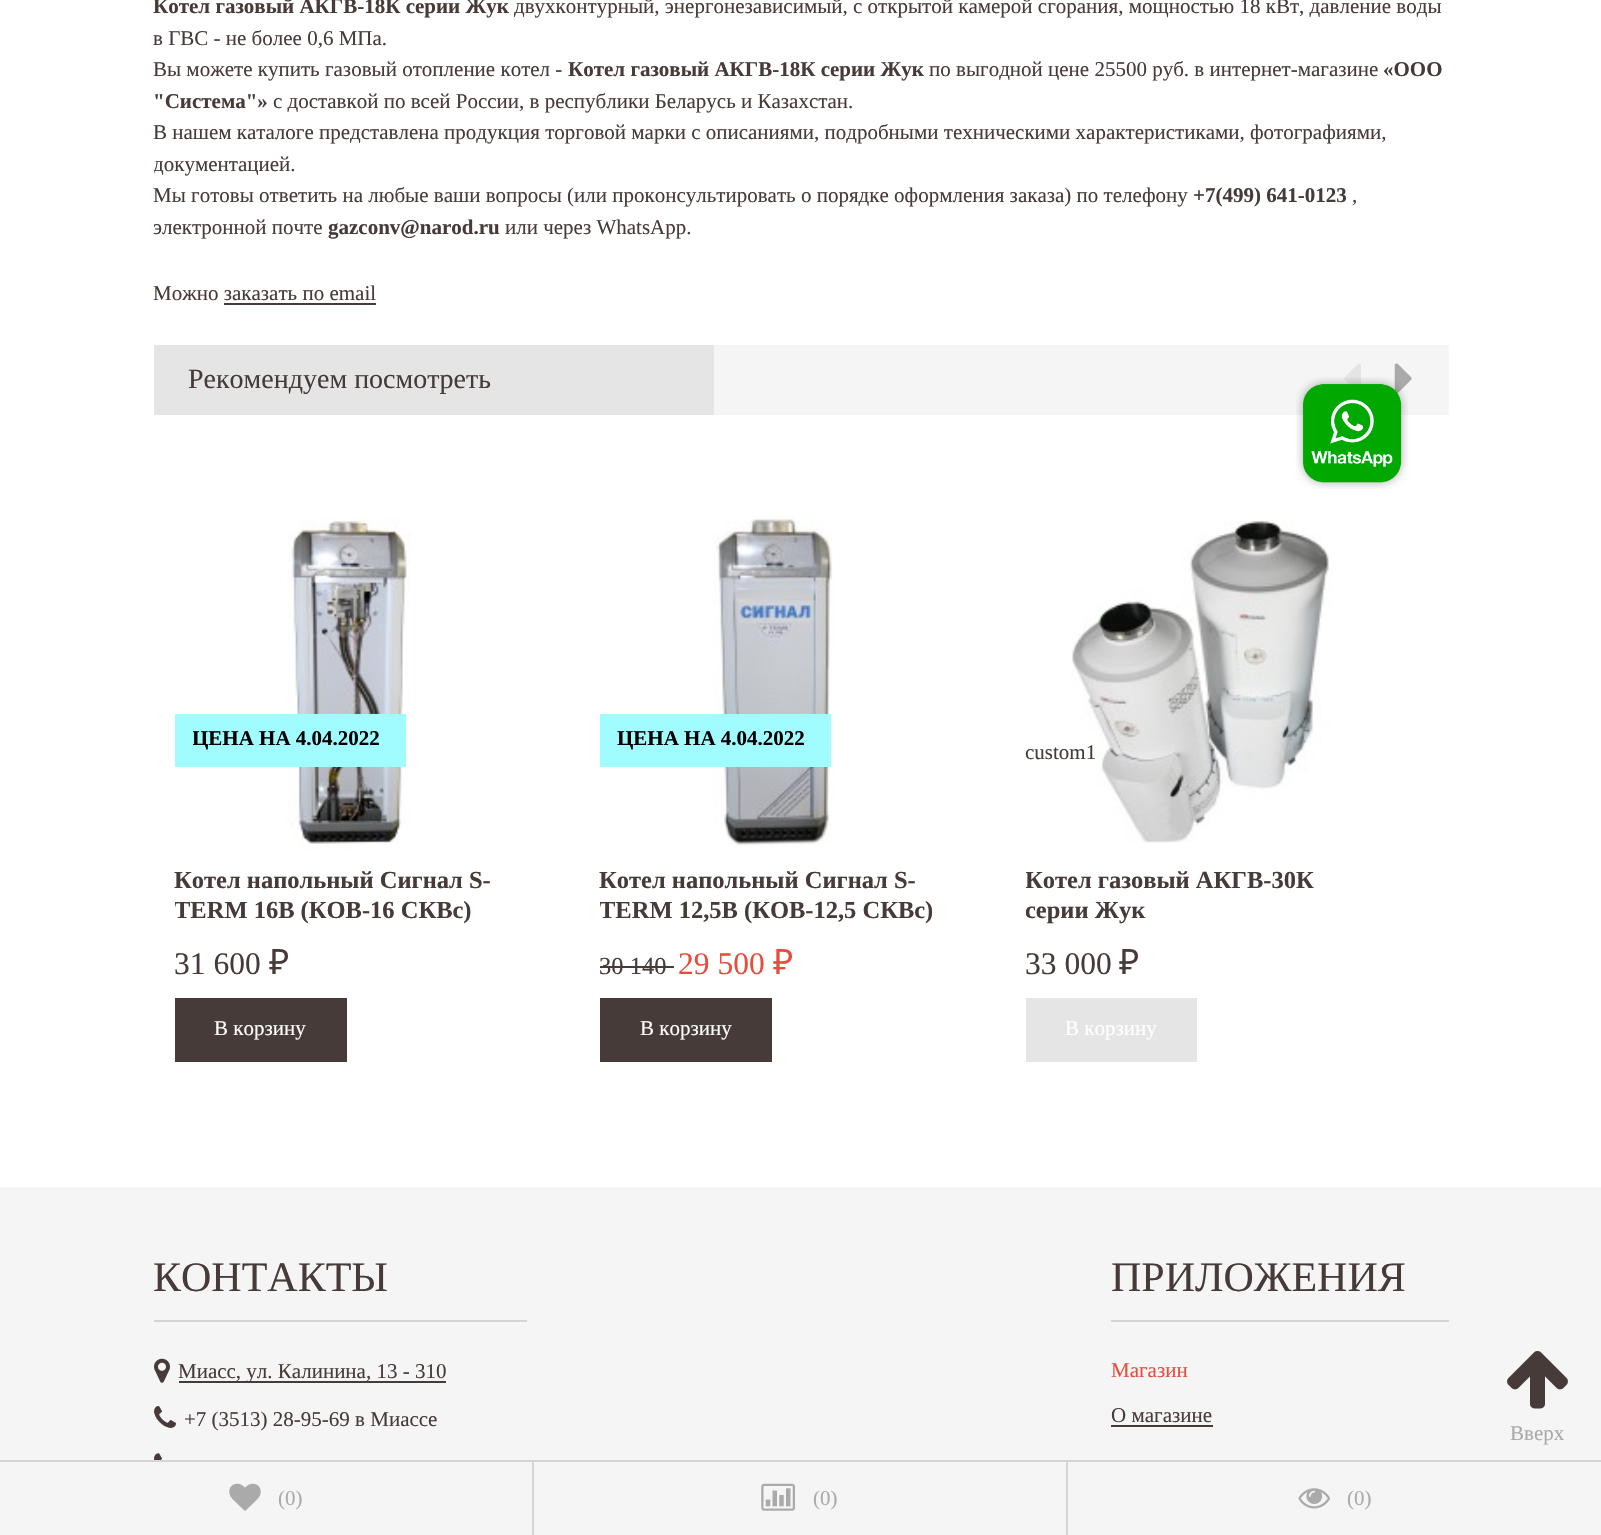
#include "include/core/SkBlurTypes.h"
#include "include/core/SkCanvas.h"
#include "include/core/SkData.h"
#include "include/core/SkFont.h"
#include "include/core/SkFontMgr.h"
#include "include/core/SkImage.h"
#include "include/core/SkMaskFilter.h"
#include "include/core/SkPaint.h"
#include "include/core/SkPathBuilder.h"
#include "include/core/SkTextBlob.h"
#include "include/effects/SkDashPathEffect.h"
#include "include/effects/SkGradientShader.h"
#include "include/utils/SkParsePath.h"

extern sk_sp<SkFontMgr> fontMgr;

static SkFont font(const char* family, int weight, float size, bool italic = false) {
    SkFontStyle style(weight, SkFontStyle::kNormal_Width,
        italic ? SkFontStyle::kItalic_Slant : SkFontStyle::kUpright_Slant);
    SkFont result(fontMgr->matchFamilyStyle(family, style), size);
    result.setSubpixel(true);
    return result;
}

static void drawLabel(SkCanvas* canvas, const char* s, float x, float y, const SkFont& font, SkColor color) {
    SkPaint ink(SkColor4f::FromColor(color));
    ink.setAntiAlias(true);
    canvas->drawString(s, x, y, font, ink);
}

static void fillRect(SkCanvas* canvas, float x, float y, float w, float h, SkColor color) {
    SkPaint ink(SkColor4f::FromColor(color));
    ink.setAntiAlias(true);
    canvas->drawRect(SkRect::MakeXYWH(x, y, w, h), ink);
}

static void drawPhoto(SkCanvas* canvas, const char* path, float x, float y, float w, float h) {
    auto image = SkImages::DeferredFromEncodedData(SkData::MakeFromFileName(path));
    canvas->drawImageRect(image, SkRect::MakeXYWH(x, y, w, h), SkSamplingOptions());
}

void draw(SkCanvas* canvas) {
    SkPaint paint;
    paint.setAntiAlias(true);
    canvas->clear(0xFFFFFFFF);
    SkFont font1 = font("Liberation Serif", 700, 21);
    drawLabel(canvas, "Котел газовый АКГВ-18К серии Жук", 153, 13, font1, 0xFF473B39);
    SkFont font2 = font("Liberation Serif", 400, 21);
    drawLabel(canvas, "двухконтурный, энергонезависимый, с открытой камерой сгорания, мощностью 18 кВт, давление воды", 514, 13, font2, 0xFF473B39);
    drawLabel(canvas, "в ГВС - не более 0,6 МПа.", 153, 45, font2, 0xFF473B39);
    drawLabel(canvas, "Вы можете купить газовый отопление котел -", 153, 76, font2, 0xFF473B39);
    drawLabel(canvas, "Котел газовый АКГВ-18К серии Жук", 568, 76, font1, 0xFF473B39);
    drawLabel(canvas, "по выгодной цене 25500 руб. в интернет-магазине", 929, 76, font2, 0xFF473B39);
    drawLabel(canvas, "«ООО", 1383, 76, font1, 0xFF473B39);
    drawLabel(canvas, "\"Система\"»", 153, 108, font1, 0xFF473B39);
    drawLabel(canvas, "с доставкой по всей России, в республики Беларусь и Казахстан.", 273, 108, font2, 0xFF473B39);
    drawLabel(canvas, "В нашем каталоге представлена продукция торговой марки с описаниями, подробными техническими характеристиками, фотографиями,", 153, 139, font2, 0xFF473B39);
    canvas->save();
    canvas->clipRect(SkRect::MakeXYWH(154, 0, 1295, 1187));
    drawLabel(canvas, "документацией.", 153, 171, font2, 0xFF473B39);
    canvas->restore();
    drawLabel(canvas, "Мы готовы ответить на любые ваши вопросы (или проконсультировать о порядке оформления заказа) по телефону", 153, 202, font2, 0xFF473B39);
    drawLabel(canvas, "+7(499) 641-0123", 1193, 202, font1, 0xFF473B39);
    drawLabel(canvas, ",", 1352, 202, font2, 0xFF473B39);
    drawLabel(canvas, "электронной почте", 153, 234, font2, 0xFF473B39);
    drawLabel(canvas, "gazconv@narod.ru", 328, 234, font1, 0xFF473B39);
    drawLabel(canvas, "или через WhatsApp.", 505, 234, font2, 0xFF473B39);
    fillRect(canvas, 714, 345, 735, 70, 0xFFF5F5F5);
    drawPhoto(canvas, "assets/img2.png", 1344, 363, 17, 22);
    drawPhoto(canvas, "assets/img3.png", 1394, 363, 18, 31);
    drawPhoto(canvas, "assets/img1.png", 1296, 377, 112, 112);
    drawLabel(canvas, "Можно заказать по email", 153, 300, font2, 0xFF473B39);
    fillRect(canvas, 224, 303, 152, 2, 0xFF473B39);
    fillRect(canvas, 154, 345, 560, 70, 0xFFE5E5E5);
    SkFont font3 = font("Liberation Serif", 400, 28);
    drawLabel(canvas, "Рекомендуем посмотреть", 188, 388, font3, 0xFF473B39);
    drawPhoto(canvas, "assets/img4.png", 287, 517, 124, 333);
    fillRect(canvas, 175, 714, 231, 53, 0xFFA1FCFF);
    canvas->save();
    canvas->clipRect(SkRect::MakeXYWH(193, 723, 187, 31));
    drawLabel(canvas, "ЦЕНА НА 4.04.2022", 192, 745, font1, 0xFF000000);
    canvas->restore();
    SkFont font4 = font("Liberation Serif", 700, 24.5f);
    drawLabel(canvas, "Котел напольный Сигнал S-", 174, 888, font4, 0xFF473B39);
    canvas->save();
    canvas->clipRect(SkRect::MakeXYWH(175, 868, 350, 58));
    drawLabel(canvas, "TERM 16В (КОВ-16 СКВс)", 174, 918, font4, 0xFF473B39);
    canvas->restore();
    SkFont font5 = font("Liberation Serif", 400, 31.5f);
    drawLabel(canvas, "31 600", 174, 974, font5, 0xFF473B39);
    SkFont font6 = font("Noto Sans", 400, 35);
    drawLabel(canvas, "₽", 269, 974, font6, 0xFF473B39);
    fillRect(canvas, 175, 998, 172, 64, 0xFF473B39);
    drawLabel(canvas, "В корзину", 214, 1035, font2, 0xFFFFFFFF);
    drawPhoto(canvas, "assets/img5.png", 713, 515, 120, 331);
    fillRect(canvas, 600, 714, 231, 53, 0xFFA1FCFF);
    drawLabel(canvas, "ЦЕНА НА 4.04.2022", 617, 745, font1, 0xFF000000);
    drawLabel(canvas, "Котел напольный Сигнал S-", 599, 888, font4, 0xFF473B39);
    canvas->save();
    canvas->clipRect(SkRect::MakeXYWH(600, 868, 350, 58));
    drawLabel(canvas, "TERM 12,5В (КОВ-12,5 СКВс)", 599, 918, font4, 0xFF473B39);
    canvas->restore();
    SkFont font7 = font("Liberation Serif", 400, 24.5f);
    drawLabel(canvas, "30 140", 599, 974, font7, 0xFF473B39);
    fillRect(canvas, 600, 966, 74, 2, 0xFF473B39);
    drawLabel(canvas, "29 500", 678, 974, font5, 0xFFE74C3C);
    drawLabel(canvas, "₽", 773, 974, font6, 0xFFE74C3C);
    fillRect(canvas, 600, 998, 172, 64, 0xFF473B39);
    drawLabel(canvas, "В корзину", 640, 1035, font2, 0xFFFFFFFF);
    drawPhoto(canvas, "assets/img6.png", 1071, 520, 261, 323);
    drawLabel(canvas, "custom1", 1025, 759, font2, 0xFF473B39);
    canvas->save();
    canvas->clipRect(SkRect::MakeXYWH(1026, 868, 350, 58));
    drawLabel(canvas, "Котел газовый АКГВ-30К", 1025, 888, font4, 0xFF473B39);
    drawLabel(canvas, "серии Жук", 1025, 918, font4, 0xFF473B39);
    canvas->restore();
    drawLabel(canvas, "33 000", 1025, 974, font5, 0xFF473B39);
    drawLabel(canvas, "₽", 1119, 974, font6, 0xFF473B39);
    fillRect(canvas, 1026, 998, 171, 64, 0xFFE5E5E5);
    drawLabel(canvas, "В корзину", 1065, 1035, font2, 0xFFFFFFFF);
    fillRect(canvas, 0, 1187, 1601, 273, 0xFFF5F5F5);
    fillRect(canvas, 154, 1320, 373, 2, 0xFFD4D4D4);
    SkFont font8 = font("Liberation Serif", 400, 42);
    drawLabel(canvas, "КОНТАКТЫ", 153, 1291, font8, 0xFF473B39);
    drawPhoto(canvas, "assets/img7.png", 154, 1358, 16, 25);
    fillRect(canvas, 179, 1381, 267, 2, 0xFF473B39);
    drawLabel(canvas, "Миасс, ул. Калинина, 13 - 310", 178, 1378, font2, 0xFF473B39);
    drawPhoto(canvas, "assets/img8.png", 154, 1406, 22, 22);
    drawLabel(canvas, "+7 (3513) 28-95-69 в Миассе", 184, 1426, font2, 0xFF473B39);
    drawPhoto(canvas, "assets/img9.png", 154, 1453, 8, 7);
    fillRect(canvas, 1111, 1320, 338, 2, 0xFFD4D4D4);
    drawLabel(canvas, "ПРИЛОЖЕНИЯ", 1111, 1291, font8, 0xFF473B39);
    drawLabel(canvas, "Магазин", 1111, 1377, font2, 0xFFE74C3C);
    drawLabel(canvas, "О магазине", 1111, 1422, font2, 0xFF473B39);
    fillRect(canvas, 1111, 1425, 102, 2, 0xFF473B39);
    drawPhoto(canvas, "assets/img10.png", 1507, 1351, 61, 58);
    drawLabel(canvas, "Вверх", 1510, 1440, font2, 0xFFAAAAAA);
    fillRect(canvas, 0, 1462, 1601, 73, 0xFFF5F5F5);
    fillRect(canvas, 0, 1460, 1601, 2, 0xFFD4D4D4);
    fillRect(canvas, 532, 1461, 2, 74, 0xFFD4D4D4);
    drawPhoto(canvas, "assets/img11.png", 229, 1483, 32, 28);
    drawLabel(canvas, "(0)", 278, 1505, font2, 0xFFAAAAAA);
    fillRect(canvas, 1066, 1461, 2, 74, 0xFFD4D4D4);
    drawPhoto(canvas, "assets/img12.png", 761, 1483, 34, 28);
    drawLabel(canvas, "(0)", 813, 1505, font2, 0xFFAAAAAA);
    drawPhoto(canvas, "assets/img13.png", 1298, 1488, 32, 21);
    drawLabel(canvas, "(0)", 1347, 1505, font2, 0xFFAAAAAA);
}
